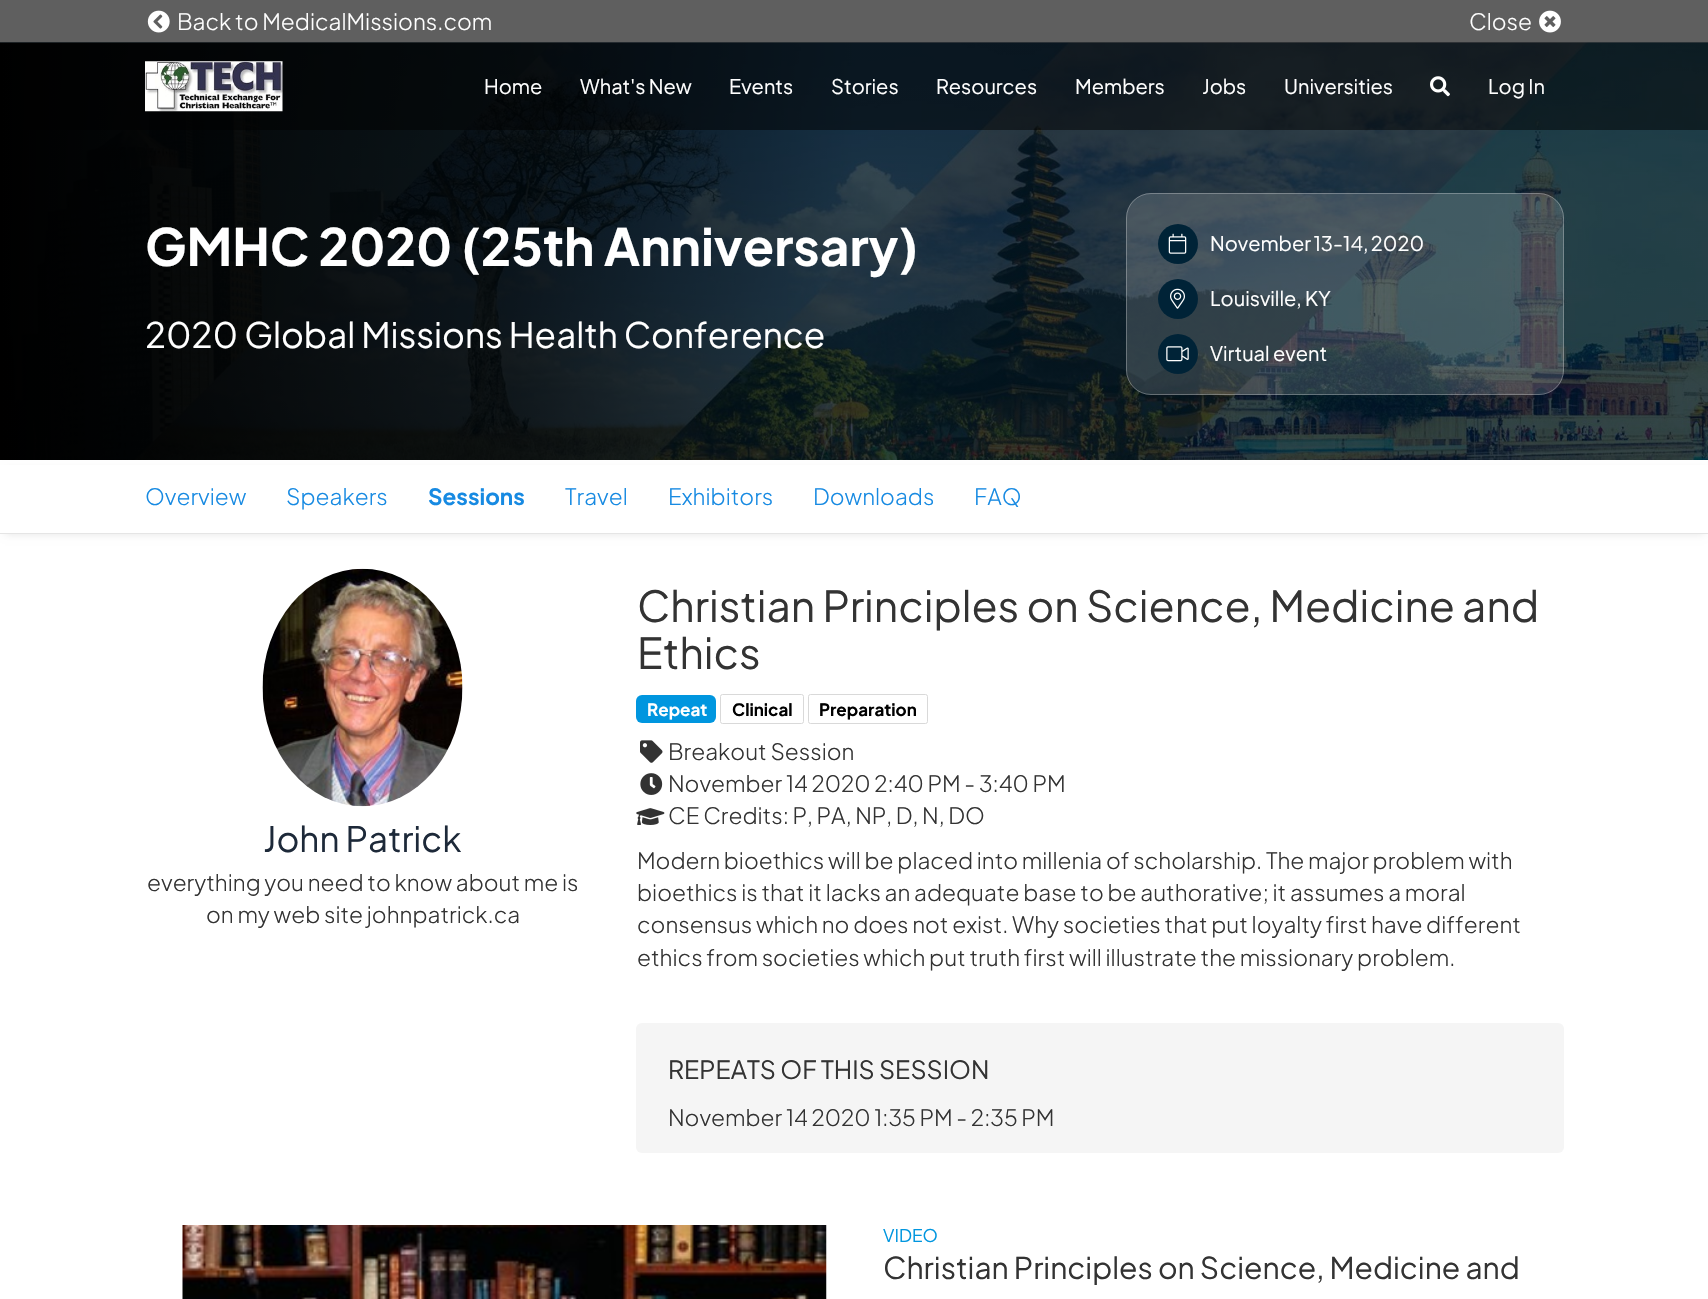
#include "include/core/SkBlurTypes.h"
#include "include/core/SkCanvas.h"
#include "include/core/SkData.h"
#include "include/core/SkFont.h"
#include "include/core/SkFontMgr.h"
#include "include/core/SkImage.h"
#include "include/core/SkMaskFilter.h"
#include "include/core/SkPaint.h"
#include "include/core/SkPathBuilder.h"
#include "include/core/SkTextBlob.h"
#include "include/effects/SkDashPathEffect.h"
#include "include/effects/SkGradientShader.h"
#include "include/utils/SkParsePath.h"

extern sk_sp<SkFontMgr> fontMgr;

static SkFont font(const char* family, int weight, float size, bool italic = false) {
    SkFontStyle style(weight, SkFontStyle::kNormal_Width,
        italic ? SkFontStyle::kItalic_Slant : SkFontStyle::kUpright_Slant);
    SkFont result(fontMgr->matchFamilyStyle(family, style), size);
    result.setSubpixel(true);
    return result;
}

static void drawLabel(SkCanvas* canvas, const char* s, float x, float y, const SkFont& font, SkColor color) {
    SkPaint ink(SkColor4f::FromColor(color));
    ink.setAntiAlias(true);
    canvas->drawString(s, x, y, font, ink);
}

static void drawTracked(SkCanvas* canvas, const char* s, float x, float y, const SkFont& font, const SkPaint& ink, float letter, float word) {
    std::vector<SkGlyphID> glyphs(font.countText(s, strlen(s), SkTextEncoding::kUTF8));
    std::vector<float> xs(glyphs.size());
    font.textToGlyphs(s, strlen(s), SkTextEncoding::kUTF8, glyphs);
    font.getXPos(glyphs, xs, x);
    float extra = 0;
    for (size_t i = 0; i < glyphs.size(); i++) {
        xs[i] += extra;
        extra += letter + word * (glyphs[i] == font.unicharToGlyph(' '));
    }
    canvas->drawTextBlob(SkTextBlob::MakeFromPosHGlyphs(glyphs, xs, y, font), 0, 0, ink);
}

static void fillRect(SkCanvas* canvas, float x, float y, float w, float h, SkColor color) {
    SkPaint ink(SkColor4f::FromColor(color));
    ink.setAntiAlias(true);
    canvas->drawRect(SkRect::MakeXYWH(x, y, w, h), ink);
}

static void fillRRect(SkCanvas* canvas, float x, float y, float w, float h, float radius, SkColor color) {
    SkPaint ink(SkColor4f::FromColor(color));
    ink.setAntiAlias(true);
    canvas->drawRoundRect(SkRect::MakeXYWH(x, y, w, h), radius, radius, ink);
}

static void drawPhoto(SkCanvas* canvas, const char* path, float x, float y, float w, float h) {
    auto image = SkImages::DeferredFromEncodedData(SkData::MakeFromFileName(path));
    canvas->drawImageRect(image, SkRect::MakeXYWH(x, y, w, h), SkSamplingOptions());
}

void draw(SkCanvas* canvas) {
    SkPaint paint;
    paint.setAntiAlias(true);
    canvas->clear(0xFFFFFFFF);
    drawPhoto(canvas, "assets/img5.png", 0, 42, 1708, 418);
    fillRect(canvas, 0, 0, 1708, 130, 0x80000000);
    fillRect(canvas, 0, 0, 1708, 43, 0x40000000);
    drawPhoto(canvas, "assets/img1.png", 147, 10, 23, 23);
    SkFont font1 = font("Plus Jakarta Sans", 300, 22.5f);
    drawLabel(canvas, "Back to MedicalMissions.com", 177, 30, font1, 0xFFFFFFFF);
    drawLabel(canvas, "Close", 1469, 30, font1, 0xFFFFFFFF);
    drawPhoto(canvas, "assets/img2.png", 1539, 10, 22, 23);
    drawPhoto(canvas, "assets/img3.png", 145, 61, 138, 51);
    SkFont font2 = font("Plus Jakarta Sans", 400, 20);
    drawLabel(canvas, "Home", 484, 94, font2, 0xFFFFFFFF);
    drawLabel(canvas, "What's New", 580, 94, font2, 0xFFFFFFFF);
    drawLabel(canvas, "Events", 729, 94, font2, 0xFFFFFFFF);
    drawLabel(canvas, "Stories", 831, 94, font2, 0xFFFFFFFF);
    drawLabel(canvas, "Resources", 936, 94, font2, 0xFFFFFFFF);
    drawLabel(canvas, "Members", 1075, 94, font2, 0xFFFFFFFF);
    drawLabel(canvas, "Jobs", 1202, 94, font2, 0xFFFFFFFF);
    drawLabel(canvas, "Universities", 1284, 94, font2, 0xFFFFFFFF);
    drawPhoto(canvas, "assets/img4.png", 1430, 76, 20, 21);
    drawLabel(canvas, "Log In", 1488, 94, font2, 0xFFFFFFFF);
    SkFont font3 = font("Plus Jakarta Sans", 700, 51.25f);
    drawLabel(canvas, "GMHC 2020 (25th Anniversary)", 145, 266, font3, 0xFFFFFFFF);
    SkFont font4 = font("Plus Jakarta Sans", 400, 35);
    drawLabel(canvas, "2020 Global Missions Health Conference", 145, 348, font4, 0xFFFFFFFF);
    fillRRect(canvas, 1126, 193, 438, 202, 25, 0x26FFFFFF);
    paint.setStroke(true);
    paint.setStrokeWidth(1);
    paint.setColor(0x47FFFFFF);
    canvas->drawRoundRect(SkRect::MakeXYWH(1126.5f, 193.5f, 437, 201), 24.5f, 24.5f, paint);
    paint.setStroke(false);
    paint.setColor(0xFF002337);
    canvas->drawCircle(1178, 244, 20, paint);
    drawPhoto(canvas, "assets/img6.png", 1168, 233, 19, 21);
    paint.setColor(0xFFFFFFFF);
    drawTracked(canvas, "November 13-14, 2020", 1210, 251, font2, paint, 0, -1);
    paint.setColor(0xFF002337);
    canvas->drawCircle(1178, 299, 20, paint);
    drawPhoto(canvas, "assets/img7.png", 1170, 288, 15, 21);
    drawLabel(canvas, "Louisville, KY", 1210, 306, font2, 0xFFFFFFFF);
    canvas->drawCircle(1178, 354, 20, paint);
    drawPhoto(canvas, "assets/img8.png", 1166, 346, 23, 16);
    drawLabel(canvas, "Virtual event", 1210, 361, font2, 0xFFFFFFFF);
    paint.setColor(0x1A000000);
    paint.setMaskFilter(SkMaskFilter::MakeBlur(kNormal_SkBlurStyle, 4));
    canvas->drawRect(SkRect::MakeXYWH(5, 470, 1699, 64), paint);
    paint.setMaskFilter(nullptr);
    fillRect(canvas, 0, 465, 1708, 68, 0xFFFFFFFF);
    fillRect(canvas, 0, 533, 1708, 1, 0xFFE5E5E5);
    drawLabel(canvas, "Overview", 145, 505, font1, 0xFF178AE2);
    drawLabel(canvas, "Speakers", 286, 505, font1, 0xFF178AE2);
    SkFont font5 = font("Plus Jakarta Sans", 700, 22.5f);
    drawLabel(canvas, "Sessions", 428, 505, font5, 0xFF178AE2);
    drawLabel(canvas, "Travel", 565, 505, font1, 0xFF178AE2);
    drawLabel(canvas, "Exhibitors", 668, 505, font1, 0xFF178AE2);
    drawLabel(canvas, "Downloads", 813, 505, font1, 0xFF178AE2);
    drawLabel(canvas, "FAQ", 974, 505, font1, 0xFF178AE2);
    drawPhoto(canvas, "assets/img9.png", 262, 568, 201, 239);
    drawLabel(canvas, "John Patrick", 263, 852, font4, 0xFF1D2939);
    drawLabel(canvas, "everything you need to know about me is", 147, 891, font1, 0xFF333333);
    drawLabel(canvas, "on my web site johnpatrick.ca", 206, 923, font1, 0xFF333333);
    SkFont font6 = font("Plus Jakarta Sans", 400, 42.5f);
    drawLabel(canvas, "Christian Principles on Science, Medicine and", 637, 622, font6, 0xFF333333);
    drawLabel(canvas, "Ethics", 637, 669, font6, 0xFF333333);
    fillRRect(canvas, 636, 695, 80, 28, 6, 0xFF0096DF);
    SkFont font7 = font("Plus Jakarta Sans", 700, 17);
    drawLabel(canvas, "Repeat", 647, 716, font7, 0xFFFFFFFF);
    paint.setStroke(true);
    paint.setColor(0xFFD9D9D9);
    canvas->drawRoundRect(SkRect::MakeXYWH(720.5f, 694.5f, 83, 29), 2, 2, paint);
    drawLabel(canvas, "Clinical", 732, 716, font7, 0xFF000000);
    canvas->drawRoundRect(SkRect::MakeXYWH(808.5f, 694.5f, 119, 29), 2, 2, paint);
    drawLabel(canvas, "Preparation", 819, 716, font7, 0xFF000000);
    drawPhoto(canvas, "assets/img10.png", 640, 740, 23, 23);
    drawLabel(canvas, "Breakout Session", 668, 760, font1, 0xFF333333);
    drawPhoto(canvas, "assets/img11.png", 640, 773, 23, 22);
    drawLabel(canvas, "November 14 2020 2:40 PM - 3:40 PM", 668, 792, font1, 0xFF333333);
    drawPhoto(canvas, "assets/img12.png", 636, 808, 29, 17);
    drawLabel(canvas, "CE Credits: P, PA, NP, D, N, DO", 668, 824, font1, 0xFF333333);
    drawLabel(canvas, "Modern bioethics will be placed into millenia of scholarship. The major problem with", 637, 869, font1, 0xFF333333);
    drawLabel(canvas, "bioethics is that it lacks an adequate base to be authorative; it assumes a moral", 637, 901, font1, 0xFF333333);
    drawLabel(canvas, "consensus which no does not exist. Why societies that put loyalty first have different", 637, 933, font1, 0xFF333333);
    drawLabel(canvas, "ethics from societies which put truth first will illustrate the missionary problem.", 637, 966, font1, 0xFF333333);
    fillRRect(canvas, 636, 1023, 928, 130, 6, 0xFFF5F5F5);
    SkFont font8 = font("Plus Jakarta Sans", 400, 25);
    drawLabel(canvas, "REPEATS OF THIS SESSION", 668, 1079, font8, 0xFF333333);
    drawLabel(canvas, "November 14 2020 1:35 PM - 2:35 PM", 668, 1126, font1, 0xFF333333);
    drawPhoto(canvas, "assets/img13.png", 182, 1225, 645, 74);
    SkFont font9 = font("Plus Jakarta Sans", 400, 17.5f);
    drawLabel(canvas, "VIDEO", 883, 1242, font9, 0xFF0096DF);
    SkFont font10 = font("Plus Jakarta Sans", 400, 30);
    drawLabel(canvas, "Christian Principles on Science, Medicine and", 883, 1279, font10, 0xFF333333);
}
